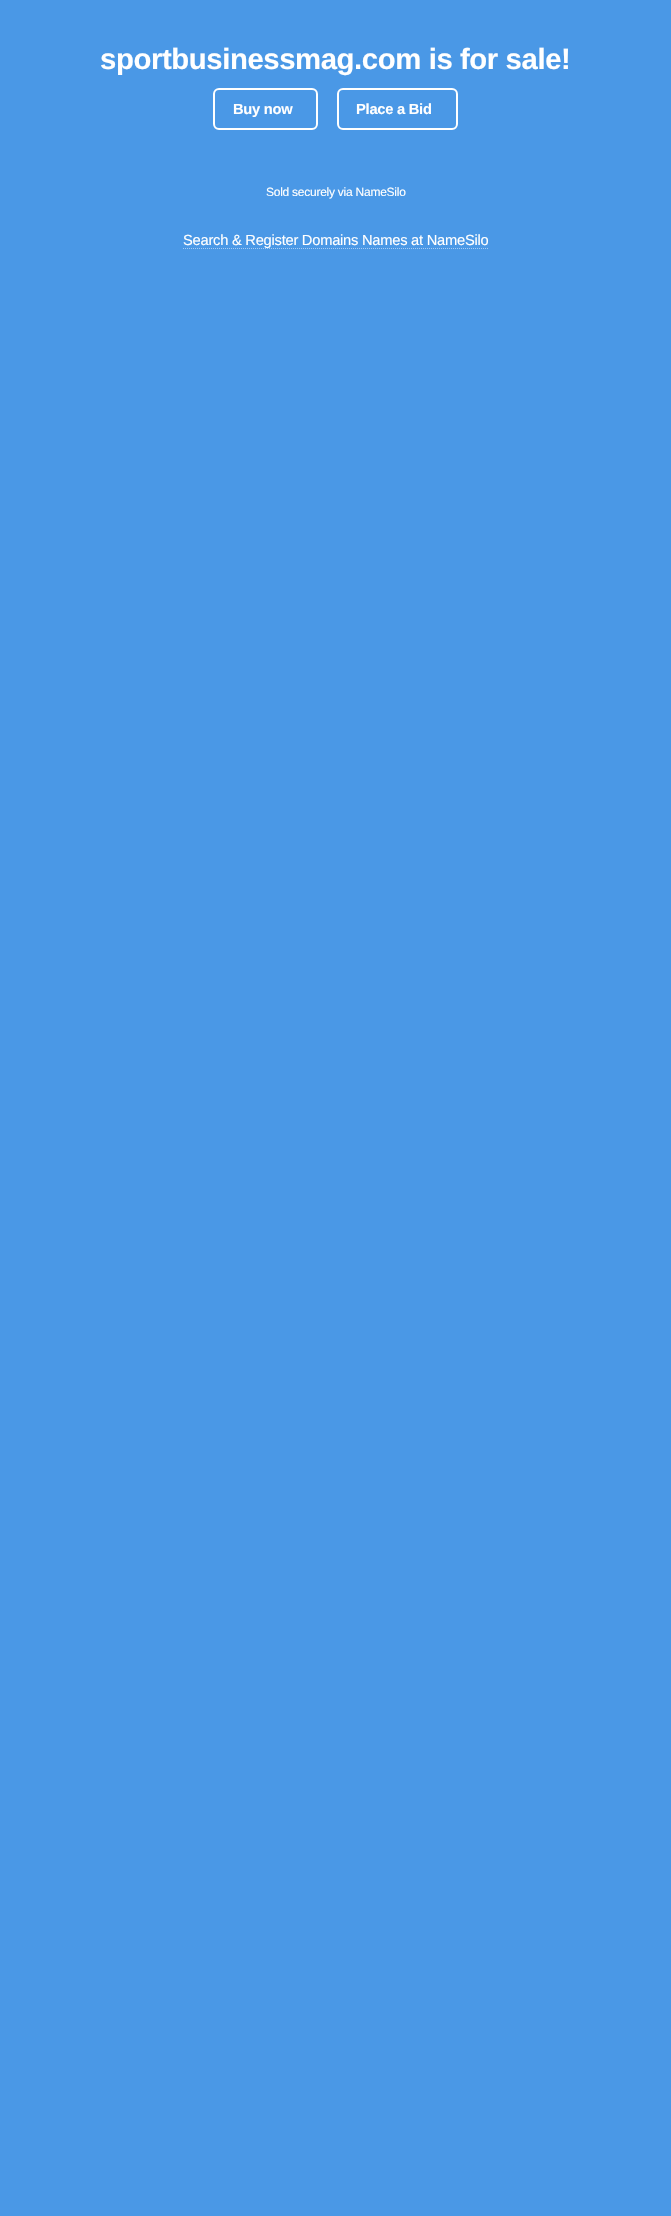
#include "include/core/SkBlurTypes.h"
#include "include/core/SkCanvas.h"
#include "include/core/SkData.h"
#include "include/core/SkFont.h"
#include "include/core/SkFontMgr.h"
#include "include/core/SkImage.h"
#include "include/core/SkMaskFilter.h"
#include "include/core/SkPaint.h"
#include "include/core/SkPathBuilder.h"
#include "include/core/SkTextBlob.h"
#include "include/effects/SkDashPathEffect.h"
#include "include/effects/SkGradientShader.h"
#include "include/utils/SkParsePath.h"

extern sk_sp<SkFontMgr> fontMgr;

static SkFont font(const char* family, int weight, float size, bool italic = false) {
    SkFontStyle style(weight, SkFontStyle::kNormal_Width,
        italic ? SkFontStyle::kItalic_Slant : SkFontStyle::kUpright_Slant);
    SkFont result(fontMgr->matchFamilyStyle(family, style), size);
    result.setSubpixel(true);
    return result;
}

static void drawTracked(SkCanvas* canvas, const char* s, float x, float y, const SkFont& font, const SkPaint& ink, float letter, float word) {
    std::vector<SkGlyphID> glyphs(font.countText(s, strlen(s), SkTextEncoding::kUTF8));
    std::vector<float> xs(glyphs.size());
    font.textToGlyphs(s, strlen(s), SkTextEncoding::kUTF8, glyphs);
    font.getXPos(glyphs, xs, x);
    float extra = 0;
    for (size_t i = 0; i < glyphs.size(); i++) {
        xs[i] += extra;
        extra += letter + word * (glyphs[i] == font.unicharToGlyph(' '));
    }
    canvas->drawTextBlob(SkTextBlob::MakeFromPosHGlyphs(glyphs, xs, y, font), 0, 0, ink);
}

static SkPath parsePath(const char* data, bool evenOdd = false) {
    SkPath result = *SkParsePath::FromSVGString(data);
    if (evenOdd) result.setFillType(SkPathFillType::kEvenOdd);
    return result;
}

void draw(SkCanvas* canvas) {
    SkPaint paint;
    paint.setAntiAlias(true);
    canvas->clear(0xFF4A98E6);
    SkFont font1 = font("Liberation Sans", 700, 29.3f);
    paint.setColor(0xFFFFFFFF);
    drawTracked(canvas, "sportbusinessmag.com is for sale!", 100, 69, font1, paint, -0.4f, 0);
    paint.setStroke(true);
    paint.setStrokeWidth(2);
    canvas->drawRoundRect(SkRect::MakeXYWH(214, 89, 103, 40), 5, 5, paint);
    SkFont font2 = font("Liberation Sans", 700, 14.7f);
    paint.setStroke(false);
    drawTracked(canvas, "Buy now", 233, 114, font2, paint, -0.25f, 0);
    paint.setStroke(true);
    canvas->drawRoundRect(SkRect::MakeXYWH(338, 89, 119, 40), 5, 5, paint);
    paint.setStroke(false);
    drawTracked(canvas, "Place a Bid", 356, 114, font2, paint, -0.25f, 0);
    SkFont font3 = font("Liberation Sans", 400, 12);
    drawTracked(canvas, "Sold securely via NameSilo", 266, 196, font3, paint, -0.25f, 0);
    paint.setStroke(true);
    paint.setStrokeWidth(1);
    paint.setColor(0xFFA5CCF3);
    paint.setPathEffect(SkDashPathEffect::Make({{1, 1}}, 0));
    canvas->drawPath(parsePath("M183 248.5H488"), paint);
    paint.setPathEffect(nullptr);
    SkFont font4 = font("Liberation Sans", 400, 14.7f);
    paint.setStroke(false);
    paint.setColor(0xFFFFFFFF);
    drawTracked(canvas, "Search & Register Domains Names at NameSilo", 183, 245, font4, paint, -0.25f, 0);
}
